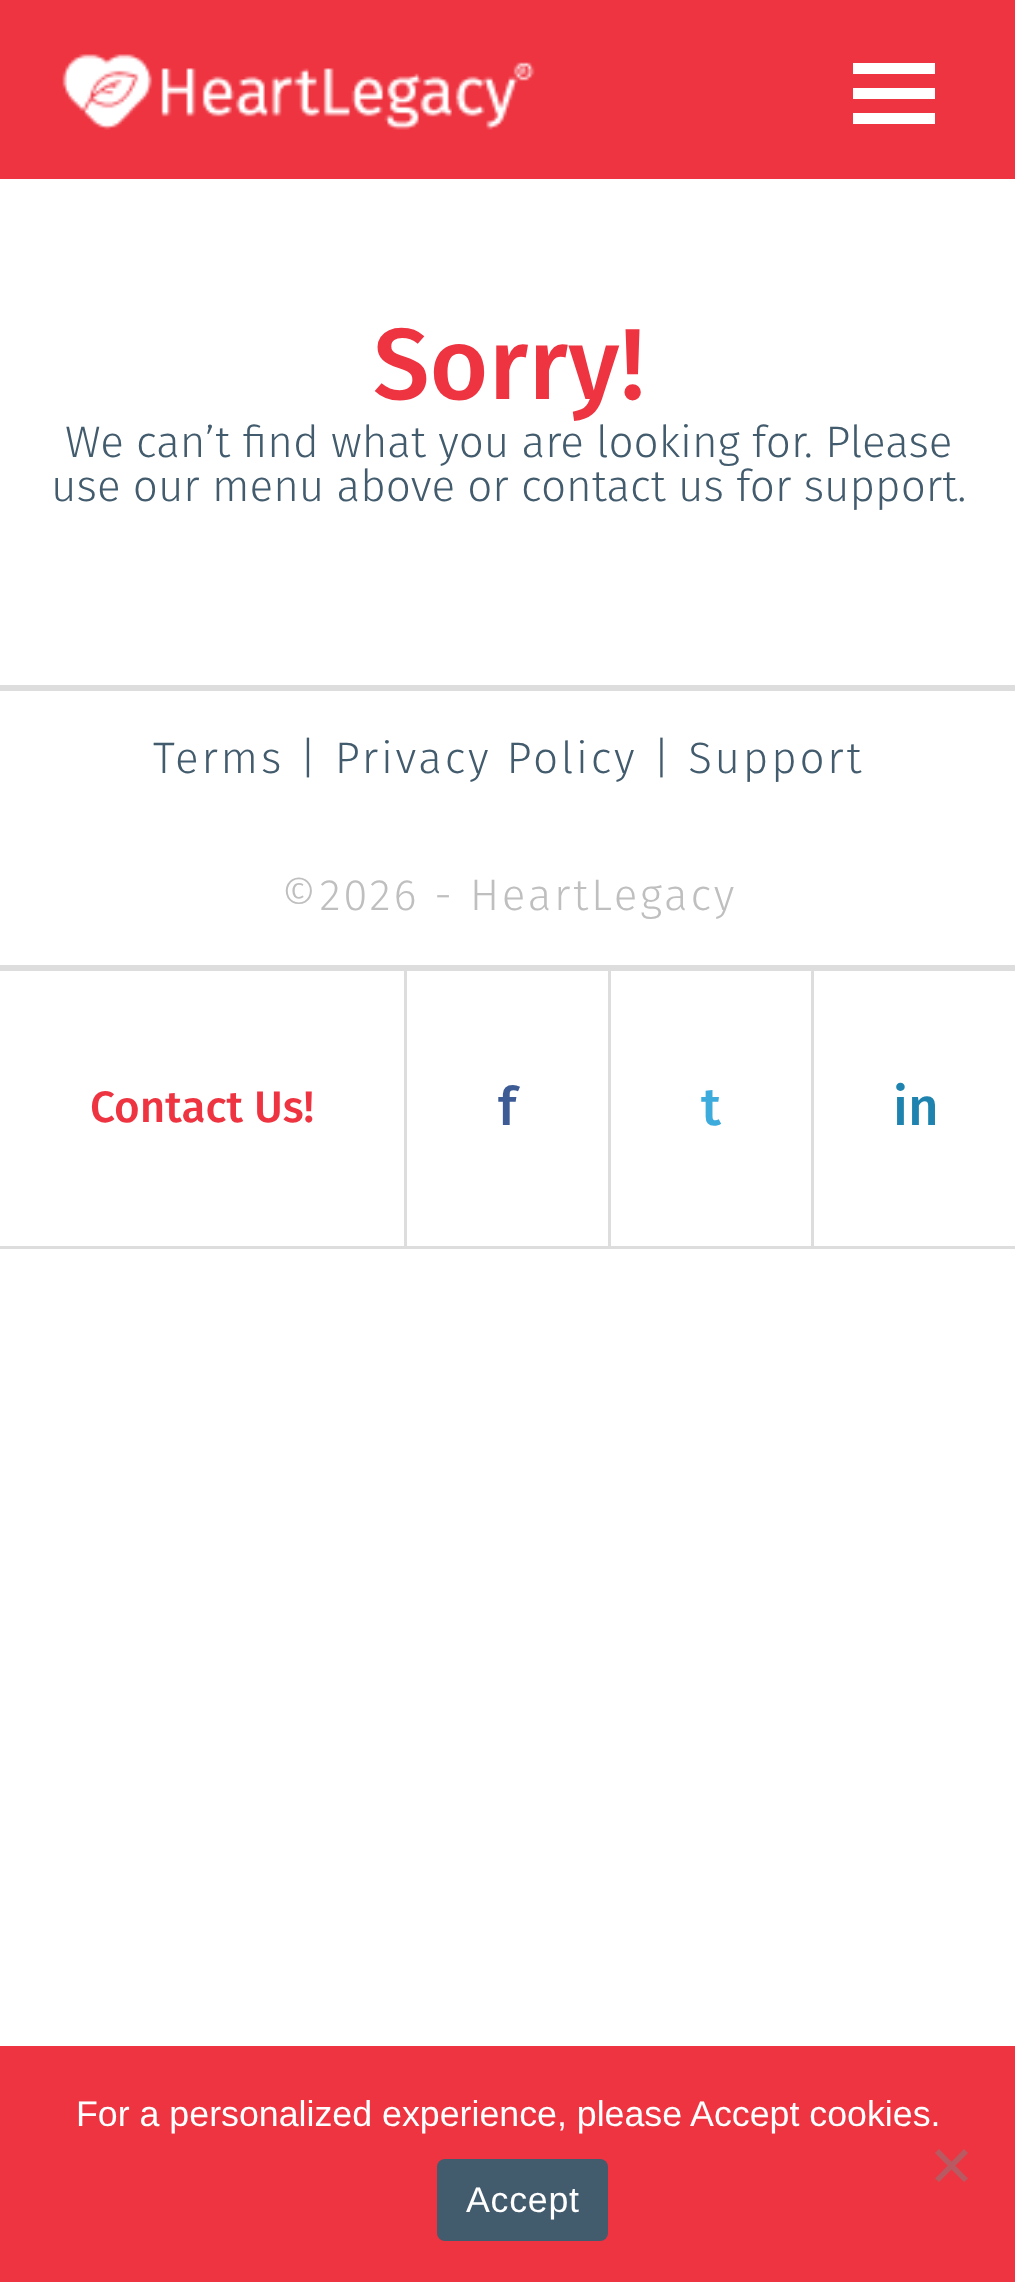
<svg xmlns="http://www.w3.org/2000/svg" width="1015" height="2282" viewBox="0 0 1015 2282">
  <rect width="100%" height="100%" fill="#ffffff"/>
  <rect x="0" y="0" width="1015" height="179" fill="#ee3441"/>
  <image x="62" y="54" width="473" height="76" href="img1.png"/>
  <rect x="853" y="63" width="82" height="11" fill="#ffffff"/>
  <rect x="853" y="88" width="82" height="11" fill="#ffffff"/>
  <rect x="853" y="113" width="82" height="11" fill="#ffffff"/>
  <text x="373" y="399" font-family="Fira Sans" font-size="101" font-weight="500" fill="#ee3441">Sorry!</text>
  <text x="65" y="457" font-family="Fira Sans" font-size="44" font-weight="300" fill="#425b6d">We can’t find what you are looking for. Please</text>
  <text x="51" y="501" font-family="Fira Sans" font-size="44" font-weight="300" fill="#425b6d">use our menu above or contact us for support.</text>
  <rect x="0" y="685" width="1015" height="6" fill="#dddddd"/>
  <rect x="0" y="965" width="1015" height="6" fill="#dddddd"/>
  <text x="153" y="773" font-family="Fira Sans" font-size="44" font-weight="300" letter-spacing="2.75" fill="#425b6d">Terms | Privacy Policy | Support</text>
  <text x="281" y="910" font-family="Fira Sans" font-size="44" font-weight="300" letter-spacing="2.75" fill="#bfbfbf">©2026 - HeartLegacy</text>
  <rect x="0" y="1246" width="1015" height="3" fill="#dddddd"/>
  <rect x="404" y="971" width="3" height="275" fill="#dddddd"/>
  <text x="90" y="1122" font-family="Fira Sans" font-size="44" font-weight="500" fill="#ee3441">Contact Us!</text>
  <rect x="608" y="971" width="3" height="275" fill="#dddddd"/>
  <text x="498" y="1125" font-family="Fira Sans" font-size="53" font-weight="500" fill="#3d5b94">f</text>
  <rect x="811" y="971" width="3" height="275" fill="#dddddd"/>
  <text x="701" y="1125" font-family="Fira Sans" font-size="53" font-weight="500" fill="#3dacdd">t</text>
  <text x="893" y="1125" font-family="Fira Sans" font-size="53" font-weight="500" fill="#1e83ae">in</text>
  <rect x="0" y="2046" width="1015" height="236" fill="#ee3441"/>
  <text x="76" y="2126" font-family="Liberation Sans" font-size="35.75" fill="#ffffff">For a personalized experience, please Accept cookies.</text>
  <path d="M964 2149L968 2153L939 2182L935 2178.5Z" fill="#b75a61"/>
  <path d="M935 2153L939 2149L968 2178.5L964 2182Z" fill="#b75a61"/>
  <rect x="437" y="2159" width="171" height="82" rx="8" fill="#425b6d"/>
  <text x="466" y="2212" font-family="Liberation Sans" font-size="35.75" letter-spacing="0.75" fill="#ffffff">Accept</text>
</svg>
